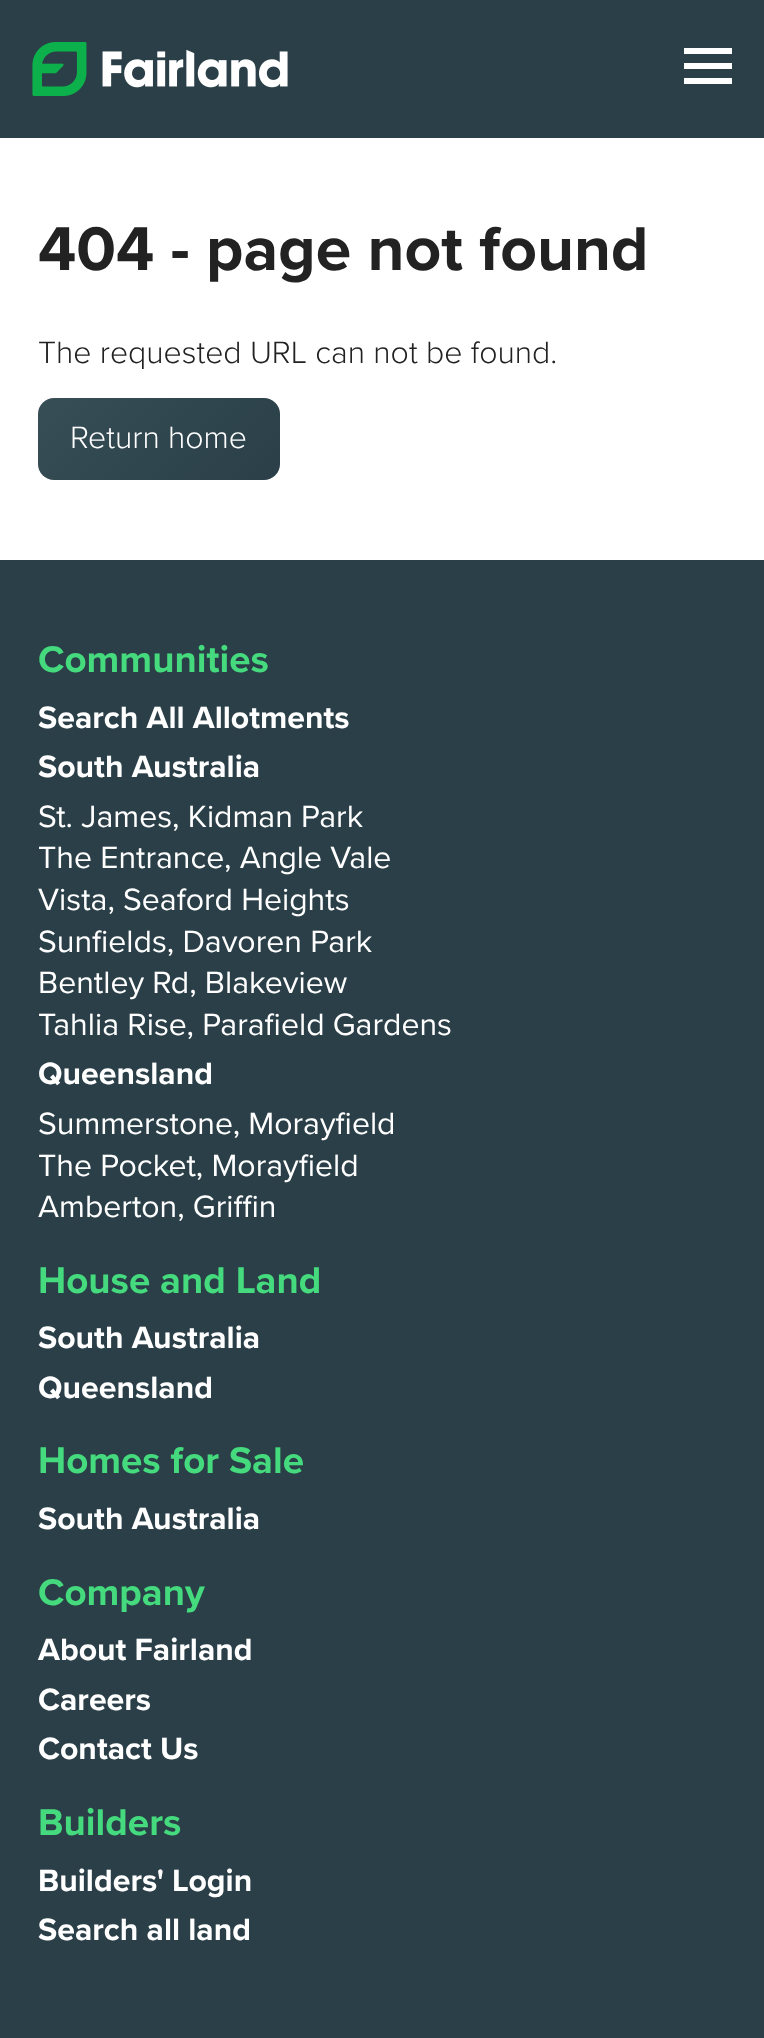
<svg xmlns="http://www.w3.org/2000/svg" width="764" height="2038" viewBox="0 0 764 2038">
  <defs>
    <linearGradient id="g1" gradientUnits="userSpaceOnUse" x1="78" y1="358" x2="240" y2="520"><stop offset="0" stop-color="#374e57"/><stop offset="1" stop-color="#2a3f47"/></linearGradient>
  </defs>
  <rect width="100%" height="100%" fill="#ffffff"/>
  <rect x="0" y="0" width="764" height="138" fill="#2a3f47"/>
  <image x="32" y="42" width="256" height="54" href="img1.png"/>
  <rect x="684" y="48" width="48" height="6" fill="#ffffff"/>
  <rect x="684" y="63" width="48" height="6" fill="#ffffff"/>
  <rect x="684" y="78" width="48" height="6" fill="#ffffff"/>
  <text x="38" y="270" font-family="Proxima Nova" font-size="64" font-weight="bold" fill="#222222">404 - page not found</text>
  <text x="38" y="363" font-family="Proxima Nova" font-size="32" font-weight="300" fill="#222222">The requested URL can not be found.</text>
  <rect x="38" y="398" width="242" height="82" rx="16" fill="url(#g1)"/>
  <text x="70" y="448" font-family="Proxima Nova" font-size="32" font-weight="300" fill="#ffffff">Return home</text>
  <rect x="0" y="560" width="764" height="1478" fill="#2a3f47"/>
  <text x="38" y="672" font-family="Proxima Nova" font-size="38.5" font-weight="bold" fill="#44da7d">Communities</text>
  <text x="38" y="728" font-family="Proxima Nova" font-size="32" font-weight="bold" fill="#ffffff">Search All Allotments</text>
  <text x="38" y="777" font-family="Proxima Nova" font-size="32" font-weight="bold" fill="#ffffff">South Australia</text>
  <text x="38" y="827" font-family="Proxima Nova" font-size="32" fill="#ffffff">St. James, Kidman Park</text>
  <text x="38" y="868" font-family="Proxima Nova" font-size="32" fill="#ffffff">The Entrance, Angle Vale</text>
  <text x="38" y="910" font-family="Proxima Nova" font-size="32" fill="#ffffff">Vista, Seaford Heights</text>
  <text x="38" y="952" font-family="Proxima Nova" font-size="32" fill="#ffffff">Sunfields, Davoren Park</text>
  <text x="38" y="993" font-family="Proxima Nova" font-size="32" fill="#ffffff">Bentley Rd, Blakeview</text>
  <text x="38" y="1035" font-family="Proxima Nova" font-size="32" fill="#ffffff">Tahlia Rise, Parafield Gardens</text>
  <text x="38" y="1084" font-family="Proxima Nova" font-size="32" font-weight="bold" fill="#ffffff">Queensland</text>
  <text x="38" y="1134" font-family="Proxima Nova" font-size="32" fill="#ffffff">Summerstone, Morayfield</text>
  <text x="38" y="1176" font-family="Proxima Nova" font-size="32" fill="#ffffff">The Pocket, Morayfield</text>
  <text x="38" y="1217" font-family="Proxima Nova" font-size="32" fill="#ffffff">Amberton, Griffin</text>
  <text x="38" y="1293" font-family="Proxima Nova" font-size="38.5" font-weight="bold" fill="#44da7d">House and Land</text>
  <text x="38" y="1348" font-family="Proxima Nova" font-size="32" font-weight="bold" fill="#ffffff">South Australia</text>
  <text x="38" y="1398" font-family="Proxima Nova" font-size="32" font-weight="bold" fill="#ffffff">Queensland</text>
  <text x="38" y="1473" font-family="Proxima Nova" font-size="38.5" font-weight="bold" fill="#44da7d">Homes for Sale</text>
  <text x="38" y="1529" font-family="Proxima Nova" font-size="32" font-weight="bold" fill="#ffffff">South Australia</text>
  <text x="38" y="1605" font-family="Proxima Nova" font-size="38.5" font-weight="bold" fill="#44da7d">Company</text>
  <text x="38" y="1660" font-family="Proxima Nova" font-size="32" font-weight="bold" fill="#ffffff">About Fairland</text>
  <text x="38" y="1710" font-family="Proxima Nova" font-size="32" font-weight="bold" fill="#ffffff">Careers</text>
  <text x="38" y="1759" font-family="Proxima Nova" font-size="32" font-weight="bold" fill="#ffffff">Contact Us</text>
  <text x="38" y="1835" font-family="Proxima Nova" font-size="38.5" font-weight="bold" fill="#44da7d">Builders</text>
  <text x="38" y="1891" font-family="Proxima Nova" font-size="32" font-weight="bold" fill="#ffffff">Builders' Login</text>
  <text x="38" y="1940" font-family="Proxima Nova" font-size="32" font-weight="bold" fill="#ffffff">Search all land</text>
</svg>
